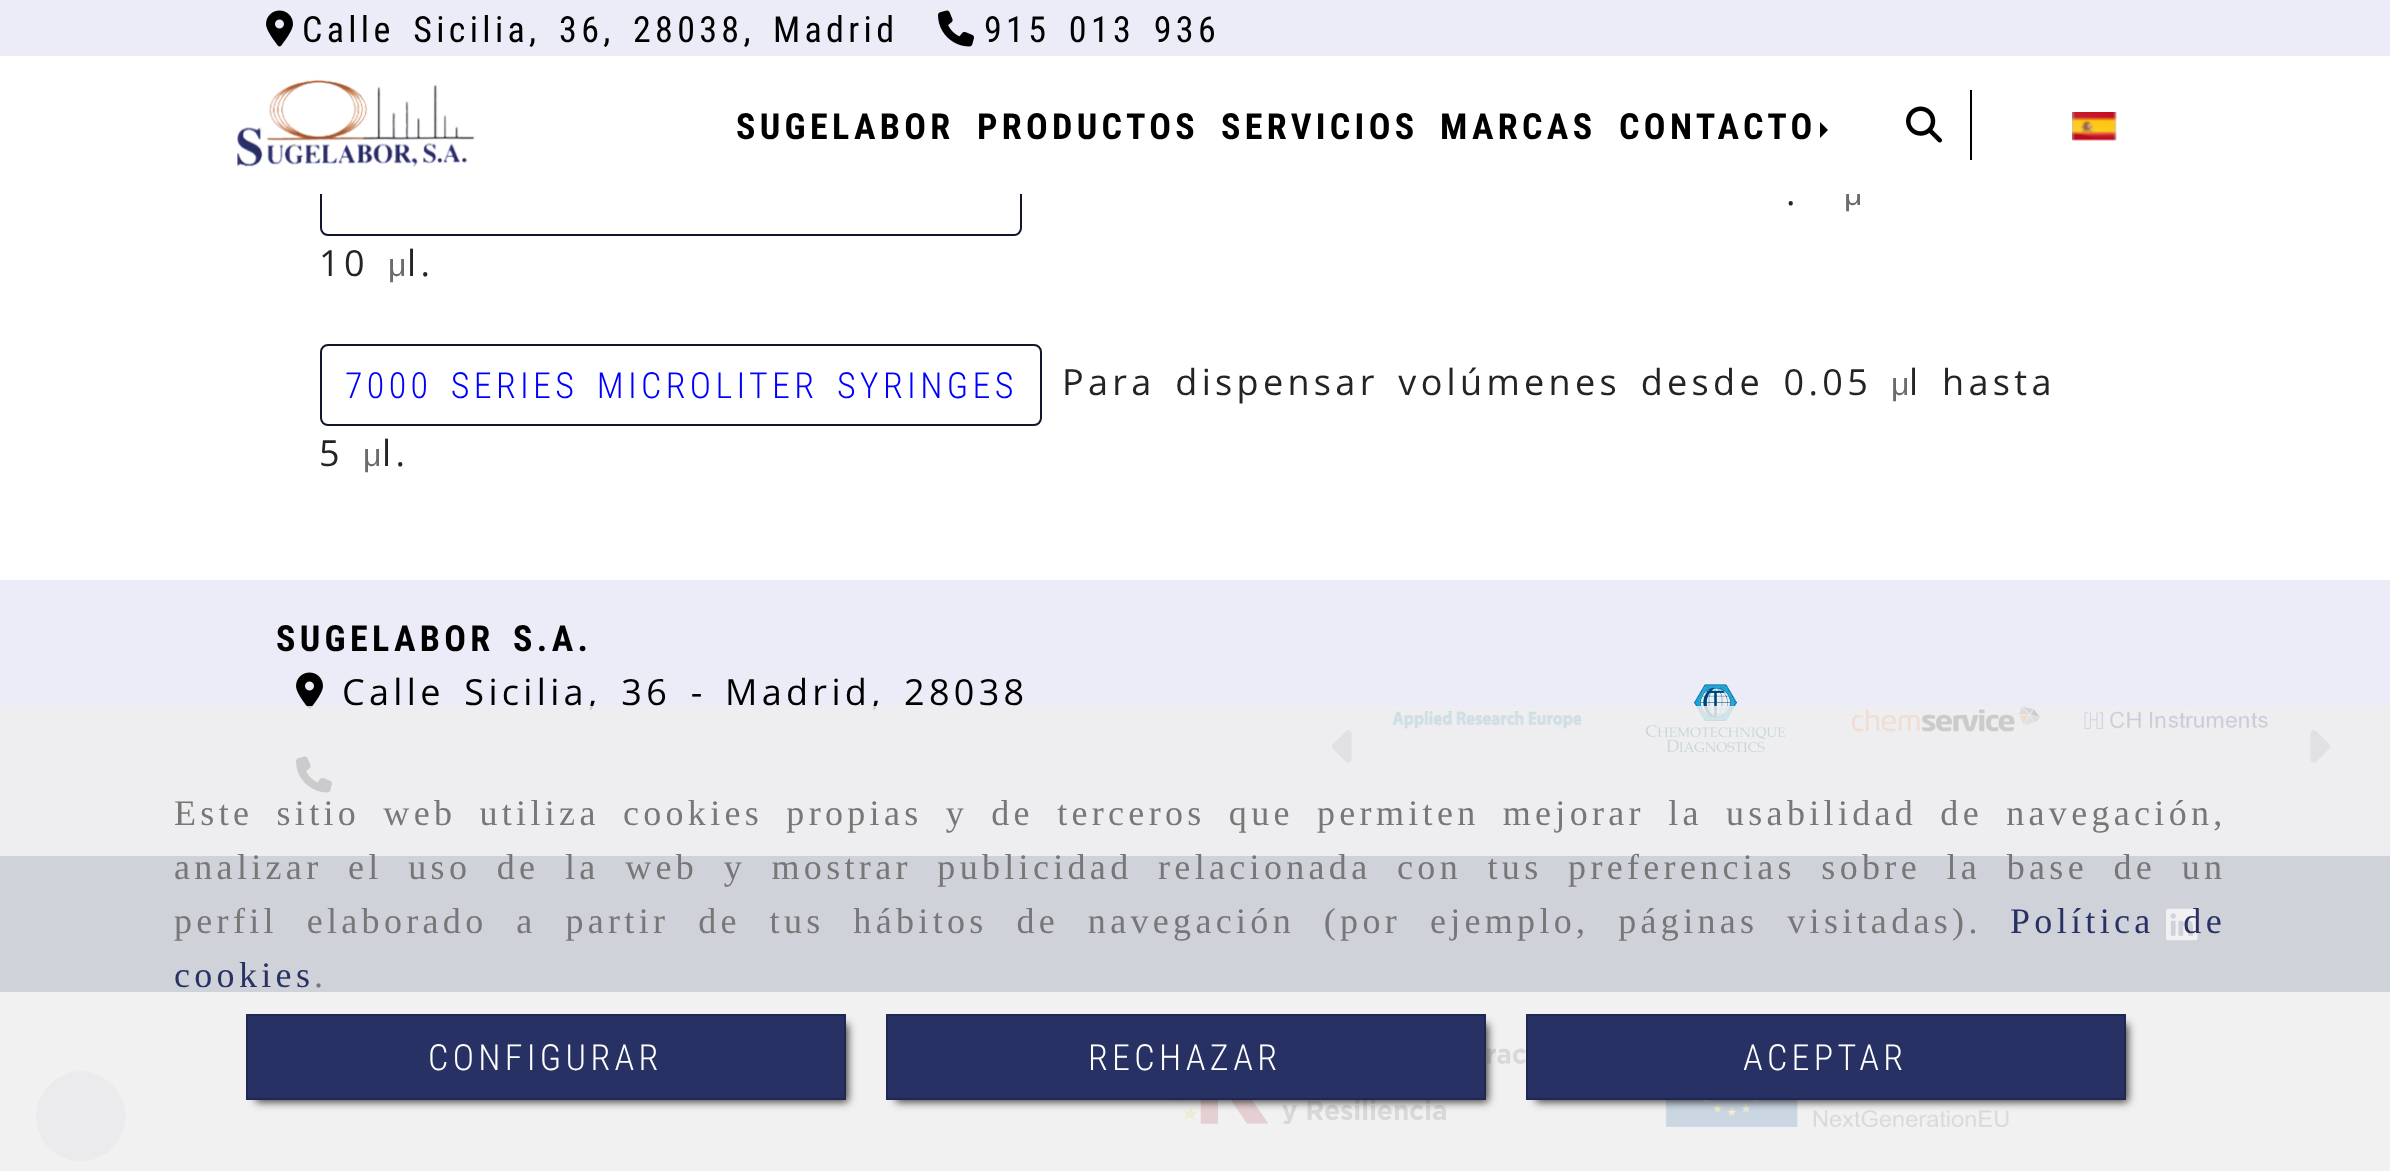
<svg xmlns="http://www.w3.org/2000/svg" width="2390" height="1171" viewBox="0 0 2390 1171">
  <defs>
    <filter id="blur1" x="-50%" y="-200%" width="200%" height="500%"><feGaussianBlur stdDeviation="4"/></filter>
  </defs>
  <rect width="100%" height="100%" fill="#ffffff"/>
  <rect x="0" y="0" width="2390" height="56" fill="#ececf8"/>
  <image x="266" y="10" width="27" height="37" href="img1.png"/>
  <text x="302" y="42" word-spacing="6" font-family="Roboto Condensed" font-size="36" letter-spacing="4.32" fill="#000000">Calle Sicilia, 36,</text>
  <text x="633" y="42" font-family="Roboto Condensed" font-size="36" letter-spacing="4.32" fill="#000000">28038,</text>
  <text x="773" y="42" font-family="Roboto Condensed" font-size="36" letter-spacing="4.32" fill="#000000">Madrid</text>
  <image x="938" y="10" width="36" height="37" href="img2.png"/>
  <text x="984" y="42" word-spacing="6" font-family="Roboto Condensed" font-size="36" letter-spacing="4.32" fill="#000000">915 013 936</text>
  <rect x="321" y="155" width="700" height="80" rx="7" fill="none" stroke="#12162d" stroke-width="2"/>
  <text x="1844" y="205" font-family="Liberation Sans" font-size="32" fill="#6b6b6b">μ</text>
  <rect x="320" y="154" width="1541" height="40" fill="#ffffff"/>
  <image x="237" y="79" width="238" height="88" href="img3.png"/>
  <text x="736" y="139" font-family="Roboto Condensed" font-size="36" font-weight="bold" letter-spacing="4.32" fill="#000000">SUGELABOR</text>
  <text x="977" y="139" font-family="Roboto Condensed" font-size="36" font-weight="bold" letter-spacing="4.32" fill="#000000">PRODUCTOS</text>
  <text x="1221" y="139" font-family="Roboto Condensed" font-size="36" font-weight="bold" letter-spacing="4.32" fill="#000000">SERVICIOS</text>
  <text x="1440" y="139" font-family="Roboto Condensed" font-size="36" font-weight="bold" letter-spacing="4.32" fill="#000000">MARCAS</text>
  <text x="1619" y="139" font-family="Roboto Condensed" font-size="36" font-weight="bold" letter-spacing="4.32" fill="#000000">CONTACTO</text>
  <path d="M1820 138V122L1828 130Z" fill="#000000"/>
  <rect x="1970" y="90" width="2" height="70" fill="#000000"/>
  <image x="1906" y="106" width="36" height="37" href="img4.png"/>
  <image x="2072" y="112" width="45" height="29" href="img5.png"/>
  <text x="1786" y="205" word-spacing="6" font-family="Open Sans" font-size="36" letter-spacing="4.32" fill="#252424">.</text>
  <text x="319" y="276" font-family="Open Sans" font-size="36" letter-spacing="4.32" fill="#252424">10</text>
  <text x="388" y="276" font-family="Liberation Sans" font-size="32" fill="#6b6b6b">μ</text>
  <text x="407" y="276" font-family="Open Sans" font-size="36" letter-spacing="4.32" fill="#252424">l.</text>
  <rect x="321" y="345" width="720" height="80" rx="7" fill="none" stroke="#12162d" stroke-width="2"/>
  <text x="345" y="398" word-spacing="6" font-family="Roboto Condensed" font-size="36" font-weight="300" letter-spacing="4.32" fill="#0000ff">7000 SERIES MICROLITER SYRINGES</text>
  <text x="1062" y="395" word-spacing="6" font-family="Open Sans" font-size="36" letter-spacing="4.32" fill="#252424">Para dispensar volúmenes desde 0.05</text>
  <text x="1891" y="395" font-family="Liberation Sans" font-size="32" fill="#6b6b6b">μ</text>
  <text x="1909" y="395" word-spacing="6" font-family="Open Sans" font-size="36" letter-spacing="4.32" fill="#252424">l hasta</text>
  <text x="319" y="466" font-family="Open Sans" font-size="36" letter-spacing="4.32" fill="#252424">5</text>
  <text x="363" y="466" font-family="Liberation Sans" font-size="32" fill="#6b6b6b">μ</text>
  <text x="382" y="466" font-family="Open Sans" font-size="36" letter-spacing="4.32" fill="#252424">l.</text>
  <rect x="0" y="580" width="2390" height="276" fill="#ececf8"/>
  <text x="276" y="651" word-spacing="6" font-family="Roboto Condensed" font-size="36" font-weight="bold" letter-spacing="4.32" fill="#000000">SUGELABOR S.A.</text>
  <image x="296" y="672" width="27" height="37" href="img1.png"/>
  <text x="342" y="705" word-spacing="6" font-family="Open Sans" font-size="36" letter-spacing="4.32" fill="#000000">Calle Sicilia, 36 -</text>
  <text x="725" y="705" font-family="Open Sans" font-size="36" letter-spacing="4.32" fill="#000000">Madrid,</text>
  <text x="904" y="705" font-family="Open Sans" font-size="36" letter-spacing="4.32" fill="#000000">28038</text>
  <image x="296" y="756" width="36" height="37" href="img2.png"/>
  <image x="1332" y="730" width="20" height="33" href="img6.png"/>
  <image x="1392" y="711" width="190" height="18" href="img7.png"/>
  <image x="1644" y="681" width="142" height="73" href="img8.png"/>
  <image x="1852" y="706" width="188" height="26" href="img9.png"/>
  <image x="2080" y="711" width="188" height="21" href="img10.png"/>
  <image x="2310" y="730" width="20" height="33" href="img11.png"/>
  <rect x="0" y="856" width="2390" height="136" fill="#273164"/>
  <image x="2166" y="908" width="32" height="33" href="img12.png"/>
  <path d="M81 1161C124 1161 142 1107 108 1081C101 1075 91 1071 81 1071C71 1071 61 1075 54 1081C20 1107 38 1161 81 1161Z" fill="#d4d6e0"/>
  <image x="63" y="1097" width="34" height="37" href="img13.png"/>
  <image x="1170" y="1048" width="356" height="76" href="img14.png"/>
  <image x="1665" y="1100" width="344" height="28" href="img15.png"/>
  <rect x="0" y="706" width="2390" height="465" fill="#eeeeee" fill-opacity="0.85"/>
  <text x="174" y="825" word-spacing="9.9" font-family="Liberation Serif" font-size="36" letter-spacing="4.32" fill="#777777">Este sitio web utiliza cookies propias y de terceros que permiten mejorar la usabilidad de navegación,</text>
  <text x="174" y="879" word-spacing="12.25" font-family="Liberation Serif" font-size="36" letter-spacing="4.32" fill="#777777">analizar el uso de la web y mostrar publicidad relacionada con tus preferencias sobre la base de un</text>
  <text x="174" y="933" word-spacing="15.5" font-family="Liberation Serif" font-size="36" letter-spacing="4.32" fill="#777777">perfil elaborado a partir de tus hábitos de navegación (por ejemplo, páginas visitadas).</text>
  <text x="2010" y="933" word-spacing="15.5" font-family="Liberation Serif" font-size="36" letter-spacing="4.32" fill="#273164">Política de</text>
  <text x="174" y="987" font-family="Liberation Serif" font-size="36" letter-spacing="4.32" fill="#273164">cookies</text>
  <text x="314" y="987" font-family="Liberation Serif" font-size="36" letter-spacing="4.32" fill="#777777">.</text>
  <rect x="256" y="1024" width="592" height="78" fill="#000000" fill-opacity="0.75" filter="url(#blur1)"/>
  <rect x="247" y="1015" width="598" height="84" fill="#273164" stroke="#202852" stroke-width="2"/>
  <text x="428" y="1070" font-family="Roboto Condensed" font-size="36" font-weight="300" letter-spacing="4.32" fill="#ffffff">CONFIGURAR</text>
  <rect x="896" y="1024" width="592" height="78" fill="#000000" fill-opacity="0.75" filter="url(#blur1)"/>
  <rect x="887" y="1015" width="598" height="84" fill="#273164" stroke="#202852" stroke-width="2"/>
  <text x="1088" y="1070" font-family="Roboto Condensed" font-size="36" font-weight="300" letter-spacing="4.32" fill="#ffffff">RECHAZAR</text>
  <rect x="1536" y="1024" width="592" height="78" fill="#000000" fill-opacity="0.75" filter="url(#blur1)"/>
  <rect x="1527" y="1015" width="598" height="84" fill="#273164" stroke="#202852" stroke-width="2"/>
  <text x="1743" y="1070" font-family="Roboto Condensed" font-size="36" font-weight="300" letter-spacing="4.32" fill="#ffffff">ACEPTAR</text>
</svg>
